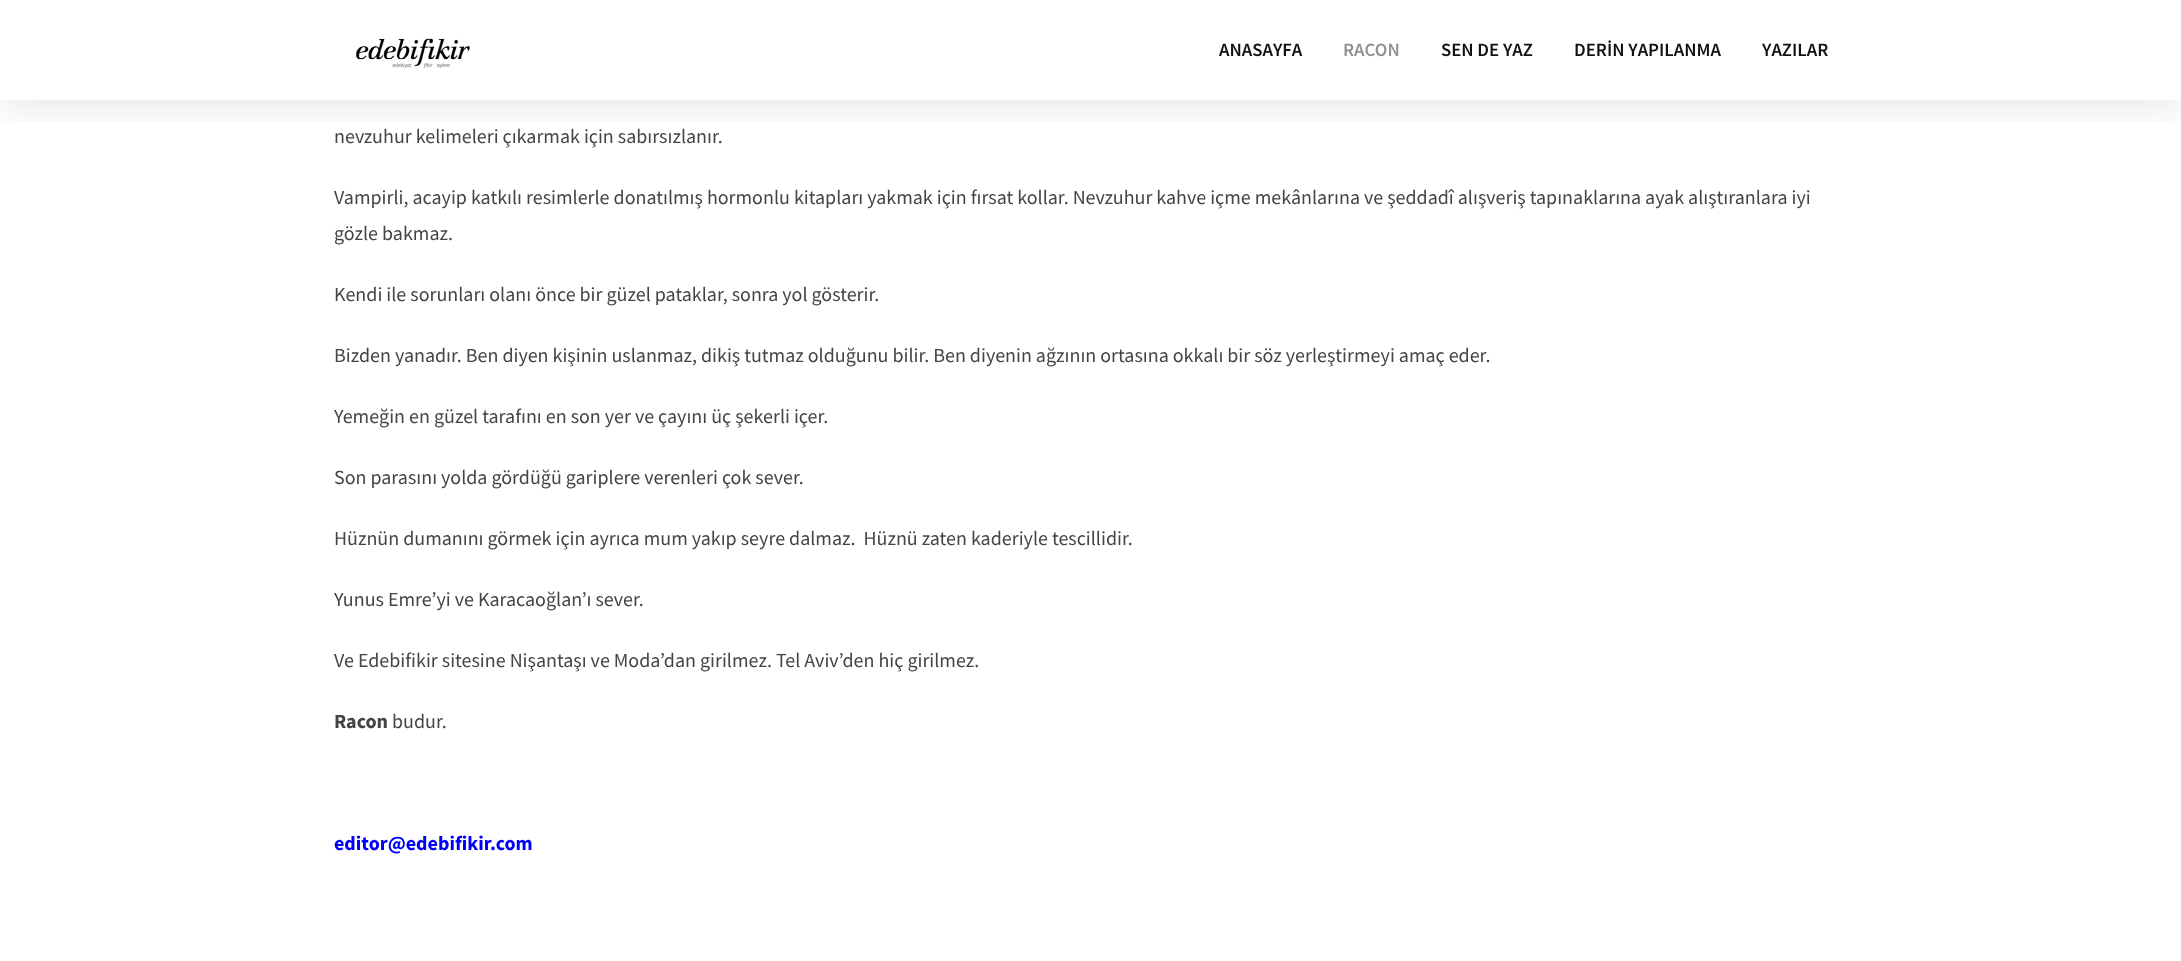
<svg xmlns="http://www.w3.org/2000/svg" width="2181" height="961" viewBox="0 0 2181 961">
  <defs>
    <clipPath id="clip1"><rect x="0" y="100" width="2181" height="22"/></clipPath>
    <filter id="blur1" x="-50%" y="-200%" width="200%" height="500%"><feGaussianBlur stdDeviation="19"/></filter>
  </defs>
  <rect width="100%" height="100%" fill="#ffffff"/>
  <g clip-path="url(#clip1)">
    <rect x="0" y="6" width="2181" height="100" fill="#000000" fill-opacity="0.1" filter="url(#blur1)"/>
  </g>
  <image x="356" y="38" width="114" height="31" href="img1.png"/>
  <text x="1219" y="56" font-family="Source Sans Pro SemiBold" font-size="18.75" font-weight="600" fill="#111111">ANASAYFA</text>
  <text x="1343" y="56" font-family="Source Sans Pro SemiBold" font-size="18.75" font-weight="600" fill="#929292">RACON</text>
  <text x="1441" y="56" font-family="Source Sans Pro SemiBold" font-size="18.75" font-weight="600" fill="#111111">SEN DE YAZ</text>
  <text x="1574" y="56" font-family="Source Sans Pro SemiBold" font-size="18.75" font-weight="600" fill="#111111">DERİN YAPILANMA</text>
  <text x="1762" y="56" font-family="Source Sans Pro SemiBold" font-size="18.75" font-weight="600" fill="#111111">YAZILAR</text>
  <text x="334" y="143" font-family="Source Sans Pro" font-size="20" fill="#444444">nevzuhur kelimeleri çıkarmak için sabırsızlanır.</text>
  <text x="334" y="204" font-family="Source Sans Pro" font-size="20" fill="#444444">Vampirli, acayip katkılı resimlerle donatılmış hormonlu kitapları yakmak için fırsat kollar. Nevzuhur kahve içme mekânlarına ve şeddadî alışveriş tapınaklarına ayak alıştıranlara iyi</text>
  <text x="334" y="240" font-family="Source Sans Pro" font-size="20" fill="#444444">gözle bakmaz.</text>
  <text x="334" y="301" font-family="Source Sans Pro" font-size="20" fill="#444444">Kendi ile sorunları olanı önce bir güzel pataklar, sonra yol gösterir.</text>
  <text x="334" y="362" font-family="Source Sans Pro" font-size="20" fill="#444444">Bizden yanadır. Ben diyen kişinin uslanmaz, dikiş tutmaz olduğunu bilir. Ben diyenin ağzının ortasına okkalı bir söz yerleştirmeyi amaç eder.</text>
  <text x="334" y="423" font-family="Source Sans Pro" font-size="20" fill="#444444">Yemeğin en güzel tarafını en son yer ve çayını üç şekerli içer.</text>
  <text x="334" y="484" font-family="Source Sans Pro" font-size="20" fill="#444444">Son parasını yolda gördüğü gariplere verenleri çok sever.</text>
  <text x="334" y="545" font-family="Source Sans Pro" font-size="20" fill="#444444" xml:space="preserve">Hüznün dumanını görmek için ayrıca mum yakıp seyre dalmaz.  Hüznü zaten kaderiyle tescillidir.</text>
  <text x="334" y="606" font-family="Source Sans Pro" font-size="20" fill="#444444">Yunus Emre’yi ve Karacaoğlan’ı sever.</text>
  <text x="334" y="667" font-family="Source Sans Pro" font-size="20" fill="#444444">Ve Edebifikir sitesine Nişantaşı ve Moda’dan girilmez. Tel Aviv’den hiç girilmez.</text>
  <text x="334" y="728" font-family="Source Sans Pro" font-size="20" font-weight="bold" fill="#444444">Racon</text>
  <text x="392" y="728" font-family="Source Sans Pro" font-size="20" fill="#444444">budur.</text>
  <text x="334" y="850" font-family="Source Sans Pro" font-size="20" font-weight="bold" fill="#0000ff">editor@edebifikir.com</text>
</svg>
